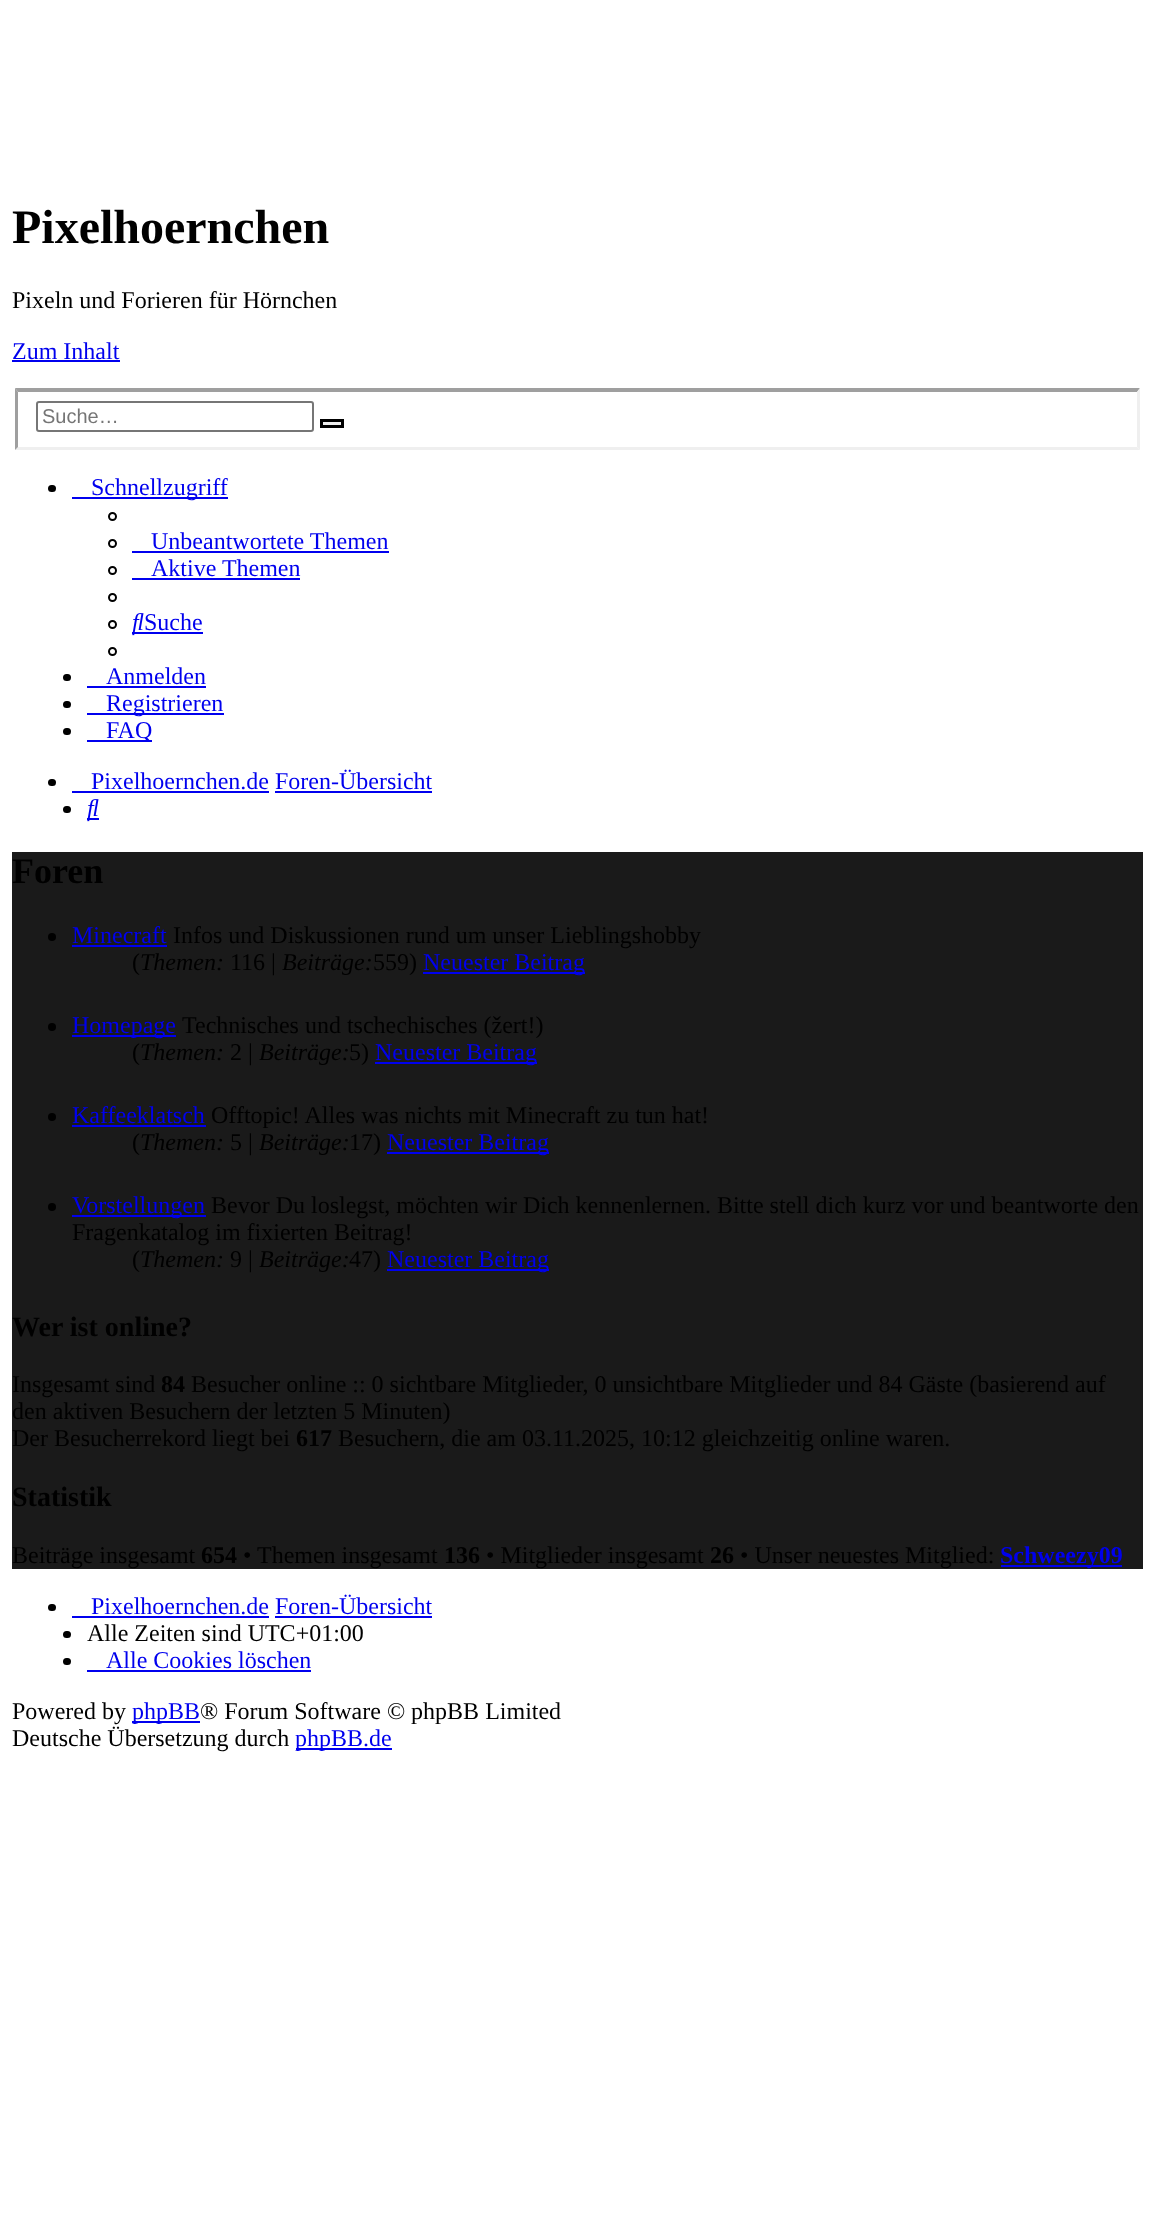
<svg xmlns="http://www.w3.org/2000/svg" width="1155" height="2213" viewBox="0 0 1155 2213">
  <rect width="100%" height="100%" fill="#ffffff"/>
  <text x="12" y="243" font-family="Liberation Serif" font-size="48" font-weight="bold" fill="#000000">Pixelhoernchen</text>
  <text x="12" y="308" font-family="Liberation Serif" font-size="24" fill="#000000">Pixeln und Forieren für Hörnchen</text>
  <text x="12" y="359" font-family="Liberation Serif" font-size="24" fill="#0000ee">Zum Inhalt</text>
  <rect x="12" y="360" width="108" height="2" fill="#0000ee"/>
  <path d="M15 388H1140L1137 392H18Z" fill="#9f9f9f"/>
  <path d="M1140 388V450L1137 447V392Z" fill="#efefef"/>
  <path d="M1140 450H15L18 447H1137Z" fill="#efefef"/>
  <path d="M15 450V388L18 392V447Z" fill="#9f9f9f"/>
  <rect x="37" y="402" width="276" height="29" rx="2" fill="none" stroke="#767676" stroke-width="2"/>
  <text x="42" y="423" font-family="Liberation Sans" font-size="20" fill="#757575">Suche…</text>
  <rect x="321.5" y="420.5" width="21" height="6" fill="#efefef" stroke="#000000" stroke-width="3"/>
  <rect x="48" y="485" width="8" height="7" rx="3.5" fill="#000000"/>
  <rect x="72" y="497" width="156" height="2" fill="#0000ee"/>
  <text x="91" y="495" font-family="Liberation Serif" font-size="24" fill="#0000ee">Schnellzugriff</text>
  <circle cx="112.5" cy="516.5" r="3.5" fill="none" stroke="#000000" stroke-width="2"/>
  <circle cx="112.5" cy="543.5" r="3.5" fill="none" stroke="#000000" stroke-width="2"/>
  <text x="151" y="549" font-family="Liberation Serif" font-size="24" fill="#0000ee">Unbeantwortete Themen</text>
  <rect x="132" y="551" width="257" height="2" fill="#0000ee"/>
  <circle cx="112.5" cy="570.5" r="3.5" fill="none" stroke="#000000" stroke-width="2"/>
  <text x="151" y="576" font-family="Liberation Serif" font-size="24" fill="#0000ee">Aktive Themen</text>
  <rect x="132" y="578" width="168" height="2" fill="#0000ee"/>
  <circle cx="112.5" cy="597.5" r="3.5" fill="none" stroke="#000000" stroke-width="2"/>
  <circle cx="112.5" cy="624.5" r="3.5" fill="none" stroke="#000000" stroke-width="2"/>
  <rect x="132" y="632" width="71" height="2" fill="#0000ee"/>
  <image x="132" y="613" width="12" height="23" href="img1.png"/>
  <text x="144" y="630" font-family="Liberation Serif" font-size="24" fill="#0000ee">Suche</text>
  <circle cx="112.5" cy="651.5" r="3.5" fill="none" stroke="#000000" stroke-width="2"/>
  <rect x="63" y="674" width="8" height="7" rx="3.5" fill="#000000"/>
  <text x="106" y="684" font-family="Liberation Serif" font-size="24" fill="#0000ee">Anmelden</text>
  <rect x="87" y="686" width="119" height="2" fill="#0000ee"/>
  <rect x="63" y="701" width="8" height="7" rx="3.5" fill="#000000"/>
  <rect x="87" y="713" width="137" height="2" fill="#0000ee"/>
  <text x="106" y="711" font-family="Liberation Serif" font-size="24" fill="#0000ee">Registrieren</text>
  <rect x="63" y="728" width="8" height="7" rx="3.5" fill="#000000"/>
  <rect x="87" y="740" width="65" height="2" fill="#0000ee"/>
  <text x="106" y="738" font-family="Liberation Serif" font-size="24" fill="#0000ee">FAQ</text>
  <rect x="48" y="779" width="8" height="7" rx="3.5" fill="#000000"/>
  <text x="91" y="789" font-family="Liberation Serif" font-size="24" fill="#0000ee">Pixelhoernchen.de Foren-Übersicht</text>
  <rect x="72" y="791" width="197" height="2" fill="#0000ee"/>
  <rect x="275" y="791" width="157" height="2" fill="#0000ee"/>
  <rect x="63" y="806" width="8" height="7" rx="3.5" fill="#000000"/>
  <rect x="87" y="818" width="12" height="2" fill="#0000ee"/>
  <image x="87" y="799" width="12" height="23" href="img1.png"/>
  <rect x="12" y="852" width="1131" height="717" fill="#1a1a1a"/>
  <text x="12" y="883" font-family="Liberation Serif" font-size="36" font-weight="bold" fill="#000000">Foren</text>
  <circle cx="52" cy="937" r="4" fill="#000000"/>
  <text x="72" y="943" font-family="Liberation Serif" font-size="24" fill="#0000ee">Minecraft</text>
  <rect x="72" y="945" width="95" height="2" fill="#0000ee"/>
  <text x="173" y="943" font-family="Liberation Serif" font-size="24" fill="#000000">Infos und Diskussionen rund um unser Lieblingshobby</text>
  <text x="132" y="970" font-family="Liberation Serif" font-size="24" fill="#000000">(</text>
  <text x="140" y="970" font-family="Liberation Serif" font-size="24" font-style="italic" fill="#000000">Themen:</text>
  <text x="230" y="970" font-family="Liberation Serif" font-size="24" fill="#000000">116 |</text>
  <text x="282" y="970" font-family="Liberation Serif" font-size="24" font-style="italic" fill="#000000">Beiträge:</text>
  <text x="373" y="970" font-family="Liberation Serif" font-size="24" fill="#000000">559)</text>
  <rect x="423" y="972" width="162" height="2" fill="#0000ee"/>
  <text x="423" y="970" font-family="Liberation Serif" font-size="24" fill="#0000ee">Neuester Beitrag</text>
  <circle cx="52" cy="1027" r="4" fill="#000000"/>
  <rect x="72" y="1035" width="104" height="2" fill="#0000ee"/>
  <text x="72" y="1033" font-family="Liberation Serif" font-size="24" fill="#0000ee">Homepage</text>
  <text x="182" y="1033" font-family="Liberation Serif" font-size="24" fill="#000000">Technisches und tschechisches (žert!)</text>
  <text x="132" y="1060" font-family="Liberation Serif" font-size="24" fill="#000000">(</text>
  <text x="140" y="1060" font-family="Liberation Serif" font-size="24" font-style="italic" fill="#000000">Themen:</text>
  <text x="230" y="1060" font-family="Liberation Serif" font-size="24" fill="#000000">2 |</text>
  <text x="259" y="1060" font-family="Liberation Serif" font-size="24" font-style="italic" fill="#000000">Beiträge:</text>
  <text x="349" y="1060" font-family="Liberation Serif" font-size="24" fill="#000000">5)</text>
  <rect x="375" y="1062" width="162" height="2" fill="#0000ee"/>
  <text x="375" y="1060" font-family="Liberation Serif" font-size="24" fill="#0000ee">Neuester Beitrag</text>
  <circle cx="52" cy="1117" r="4" fill="#000000"/>
  <text x="72" y="1123" font-family="Liberation Serif" font-size="24" fill="#0000ee">Kaffeeklatsch</text>
  <rect x="72" y="1125" width="134" height="2" fill="#0000ee"/>
  <text x="211" y="1123" font-family="Liberation Serif" font-size="24" fill="#000000">Offtopic! Alles was nichts mit Minecraft zu tun hat!</text>
  <text x="132" y="1150" font-family="Liberation Serif" font-size="24" fill="#000000">(</text>
  <text x="140" y="1150" font-family="Liberation Serif" font-size="24" font-style="italic" fill="#000000">Themen:</text>
  <text x="230" y="1150" font-family="Liberation Serif" font-size="24" fill="#000000">5 |</text>
  <text x="259" y="1150" font-family="Liberation Serif" font-size="24" font-style="italic" fill="#000000">Beiträge:</text>
  <text x="349" y="1150" font-family="Liberation Serif" font-size="24" fill="#000000">17)</text>
  <rect x="387" y="1152" width="162" height="2" fill="#0000ee"/>
  <text x="387" y="1150" font-family="Liberation Serif" font-size="24" fill="#0000ee">Neuester Beitrag</text>
  <circle cx="52" cy="1207" r="4" fill="#000000"/>
  <rect x="72" y="1215" width="134" height="2" fill="#0000ee"/>
  <text x="72" y="1213" font-family="Liberation Serif" font-size="24" fill="#0000ee">Vorstellungen</text>
  <text x="211" y="1213" font-family="Liberation Serif" font-size="24" fill="#000000">Bevor Du loslegst, möchten wir Dich kennenlernen. Bitte stell dich kurz vor und beantworte den</text>
  <text x="72" y="1240" font-family="Liberation Serif" font-size="24" fill="#000000">Fragenkatalog im fixierten Beitrag!</text>
  <text x="132" y="1267" font-family="Liberation Serif" font-size="24" fill="#000000">(</text>
  <text x="140" y="1267" font-family="Liberation Serif" font-size="24" font-style="italic" fill="#000000">Themen:</text>
  <text x="230" y="1267" font-family="Liberation Serif" font-size="24" fill="#000000">9 |</text>
  <text x="259" y="1267" font-family="Liberation Serif" font-size="24" font-style="italic" fill="#000000">Beiträge:</text>
  <text x="349" y="1267" font-family="Liberation Serif" font-size="24" fill="#000000">47)</text>
  <rect x="387" y="1269" width="162" height="2" fill="#0000ee"/>
  <text x="387" y="1267" font-family="Liberation Serif" font-size="24" fill="#0000ee">Neuester Beitrag</text>
  <text x="12" y="1336" font-family="Liberation Serif" font-size="28" font-weight="bold" fill="#000000">Wer ist online?</text>
  <text x="12" y="1392" font-family="Liberation Serif" font-size="24" fill="#000000">Insgesamt sind</text>
  <text x="161" y="1392" font-family="Liberation Serif" font-size="24" font-weight="bold" fill="#000000">84</text>
  <text x="191" y="1392" font-family="Liberation Serif" font-size="24" fill="#000000">Besucher online :: 0 sichtbare Mitglieder, 0 unsichtbare Mitglieder und 84 Gäste (basierend auf</text>
  <text x="12" y="1419" font-family="Liberation Serif" font-size="24" fill="#000000">den aktiven Besuchern der letzten 5 Minuten)</text>
  <text x="12" y="1446" font-family="Liberation Serif" font-size="24" fill="#000000">Der Besucherrekord liegt bei</text>
  <text x="296" y="1446" font-family="Liberation Serif" font-size="24" font-weight="bold" fill="#000000">617</text>
  <text x="338" y="1446" font-family="Liberation Serif" font-size="24" fill="#000000">Besuchern, die am 03.11.2025, 10:12 gleichzeitig online waren.</text>
  <text x="12" y="1506" font-family="Liberation Serif" font-size="28" font-weight="bold" fill="#000000">Statistik</text>
  <text x="12" y="1563" font-family="Liberation Serif" font-size="24" fill="#000000">Beiträge insgesamt</text>
  <text x="201" y="1563" font-family="Liberation Serif" font-size="24" font-weight="bold" fill="#000000">654</text>
  <text x="243" y="1563" font-family="Liberation Serif" font-size="24" fill="#000000">• Themen insgesamt</text>
  <text x="444" y="1563" font-family="Liberation Serif" font-size="24" font-weight="bold" fill="#000000">136</text>
  <text x="486" y="1563" font-family="Liberation Serif" font-size="24" fill="#000000">• Mitglieder insgesamt</text>
  <text x="710" y="1563" font-family="Liberation Serif" font-size="24" font-weight="bold" fill="#000000">26</text>
  <text x="740" y="1563" font-family="Liberation Serif" font-size="24" fill="#000000">• Unser neuestes Mitglied:</text>
  <rect x="1001" y="1565" width="121" height="2" fill="#0000ee"/>
  <text x="1000" y="1563" font-family="Liberation Serif" font-size="24" font-weight="bold" fill="#0000ee">Schweezy09</text>
  <rect x="48" y="1604" width="8" height="7" rx="3.5" fill="#000000"/>
  <text x="91" y="1614" font-family="Liberation Serif" font-size="24" fill="#0000ee">Pixelhoernchen.de Foren-Übersicht</text>
  <rect x="72" y="1616" width="197" height="2" fill="#0000ee"/>
  <rect x="275" y="1616" width="157" height="2" fill="#0000ee"/>
  <rect x="63" y="1631" width="8" height="7" rx="3.5" fill="#000000"/>
  <text x="87" y="1641" font-family="Liberation Serif" font-size="24" fill="#000000">Alle Zeiten sind UTC+01:00</text>
  <rect x="63" y="1658" width="8" height="7" rx="3.5" fill="#000000"/>
  <text x="106" y="1668" font-family="Liberation Serif" font-size="24" fill="#0000ee">Alle Cookies löschen</text>
  <rect x="87" y="1670" width="224" height="2" fill="#0000ee"/>
  <text x="12" y="1719" font-family="Liberation Serif" font-size="24" fill="#000000">Powered by</text>
  <rect x="132" y="1721" width="68" height="2" fill="#0000ee"/>
  <text x="132" y="1719" font-family="Liberation Serif" font-size="24" fill="#0000ee">phpBB</text>
  <text x="200" y="1719" font-family="Liberation Serif" font-size="24" fill="#000000">® Forum Software © phpBB Limited</text>
  <text x="12" y="1746" font-family="Liberation Serif" font-size="24" fill="#000000">Deutsche Übersetzung durch</text>
  <rect x="296" y="1748" width="96" height="2" fill="#0000ee"/>
  <text x="295" y="1746" font-family="Liberation Serif" font-size="24" fill="#0000ee">phpBB.de</text>
</svg>
